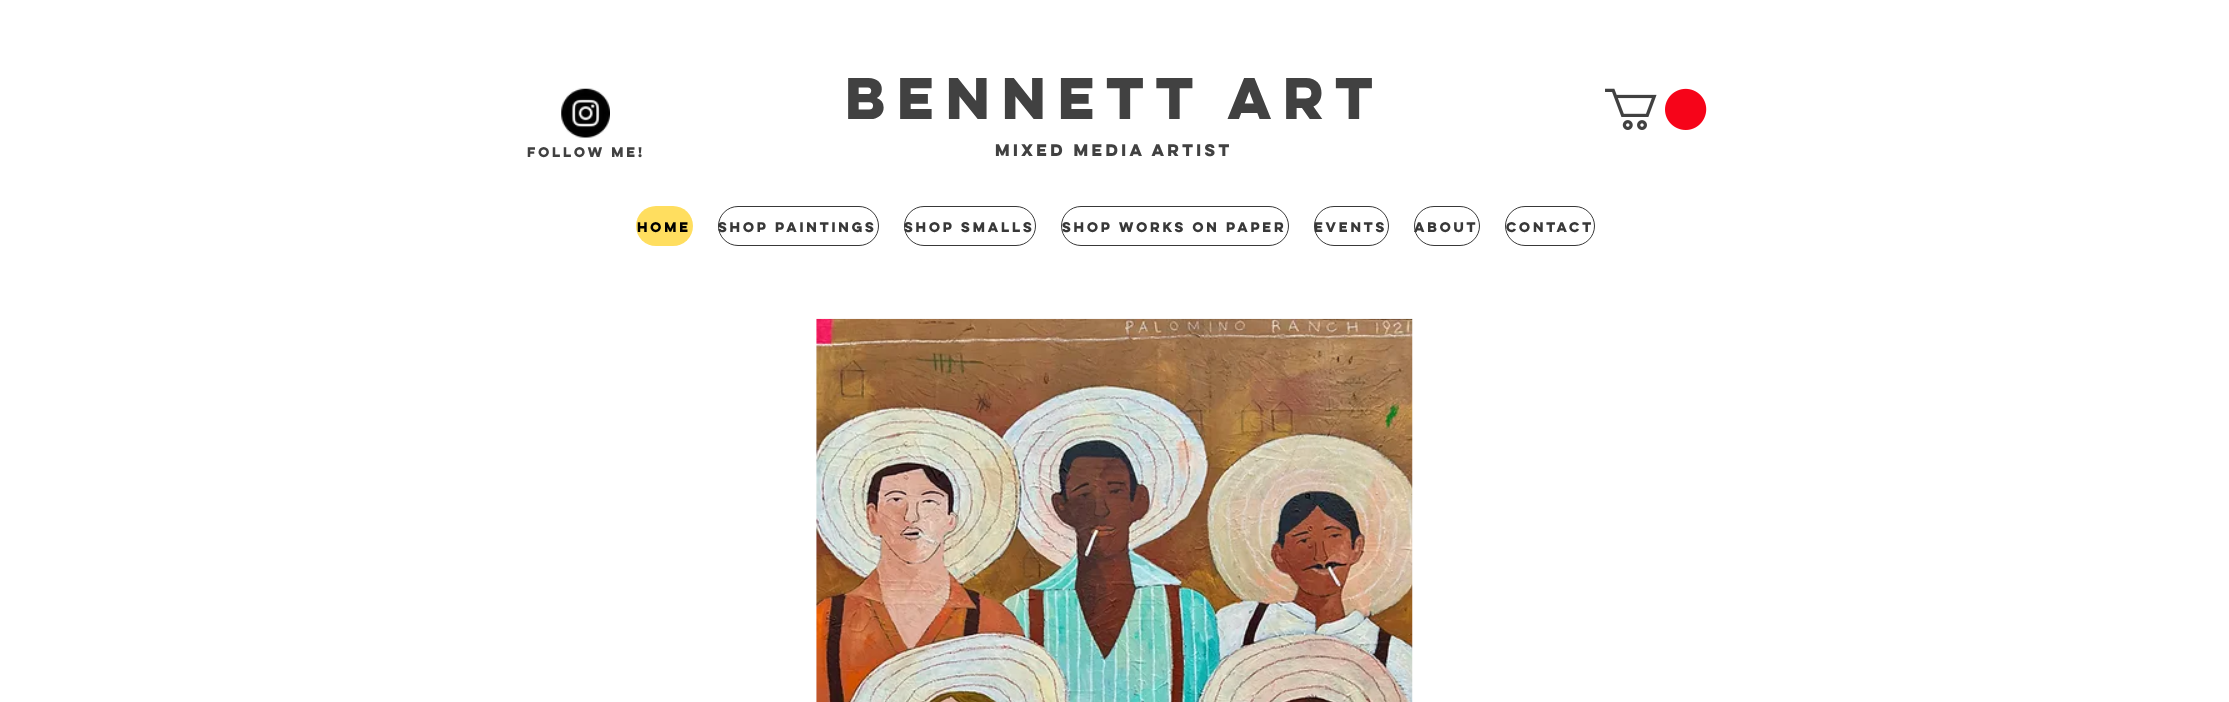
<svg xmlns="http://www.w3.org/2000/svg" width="2229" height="702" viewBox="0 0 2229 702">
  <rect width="100%" height="100%" fill="#ffffff"/>
  <image x="561" y="88" width="49" height="50" href="img1.png"/>
  <text x="845" y="119" font-family="'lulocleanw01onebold'" font-size="52.5" font-weight="bold" fill="#414141">bennett art</text>
  <image x="1605" y="88" width="102" height="42" href="img2.png"/>
  <text x="527" y="157" font-family="'lulocleanw01onebold'" font-size="12.5" font-weight="bold" fill="#414141">follow me!</text>
  <text x="995" y="156" font-family="'lulocleanw01onebold'" font-size="15" font-weight="bold" fill="#414141">mixed media artist</text>
  <rect x="636" y="206" width="57" height="40" rx="20" fill="#ffde5f"/>
  <text x="637" y="232" font-family="'lulocleanw01onebold'" font-size="12.5" font-weight="bold" fill="#000000">Home</text>
  <rect x="718.5" y="206.5" width="160" height="39" rx="19.5" fill="none" stroke="#383838"/>
  <text x="718" y="232" font-family="'lulocleanw01onebold'" font-size="12.5" font-weight="bold" fill="#383838">Shop Paintings</text>
  <rect x="904.5" y="206.5" width="131" height="39" rx="19.5" fill="none" stroke="#383838"/>
  <text x="904" y="232" font-family="'lulocleanw01onebold'" font-size="12.5" font-weight="bold" fill="#383838">Shop Smalls</text>
  <rect x="1061.5" y="206.5" width="227" height="39" rx="19.5" fill="none" stroke="#383838"/>
  <text x="1062" y="232" font-family="'lulocleanw01onebold'" font-size="12.5" font-weight="bold" fill="#383838">Shop Works On Paper</text>
  <rect x="1314.5" y="206.5" width="74" height="39" rx="19.5" fill="none" stroke="#383838"/>
  <text x="1314" y="232" font-family="'lulocleanw01onebold'" font-size="12.5" font-weight="bold" fill="#383838">Events</text>
  <rect x="1414.5" y="206.5" width="65" height="39" rx="19.5" fill="none" stroke="#383838"/>
  <text x="1414" y="232" font-family="'lulocleanw01onebold'" font-size="12.5" font-weight="bold" fill="#383838">About</text>
  <rect x="1505.5" y="206.5" width="89" height="39" rx="19.5" fill="none" stroke="#383838"/>
  <text x="1506" y="232" font-family="'lulocleanw01onebold'" font-size="12.5" font-weight="bold" fill="#383838">Contact</text>
  <image x="816" y="318" width="597" height="384" href="img3.png"/>
</svg>
